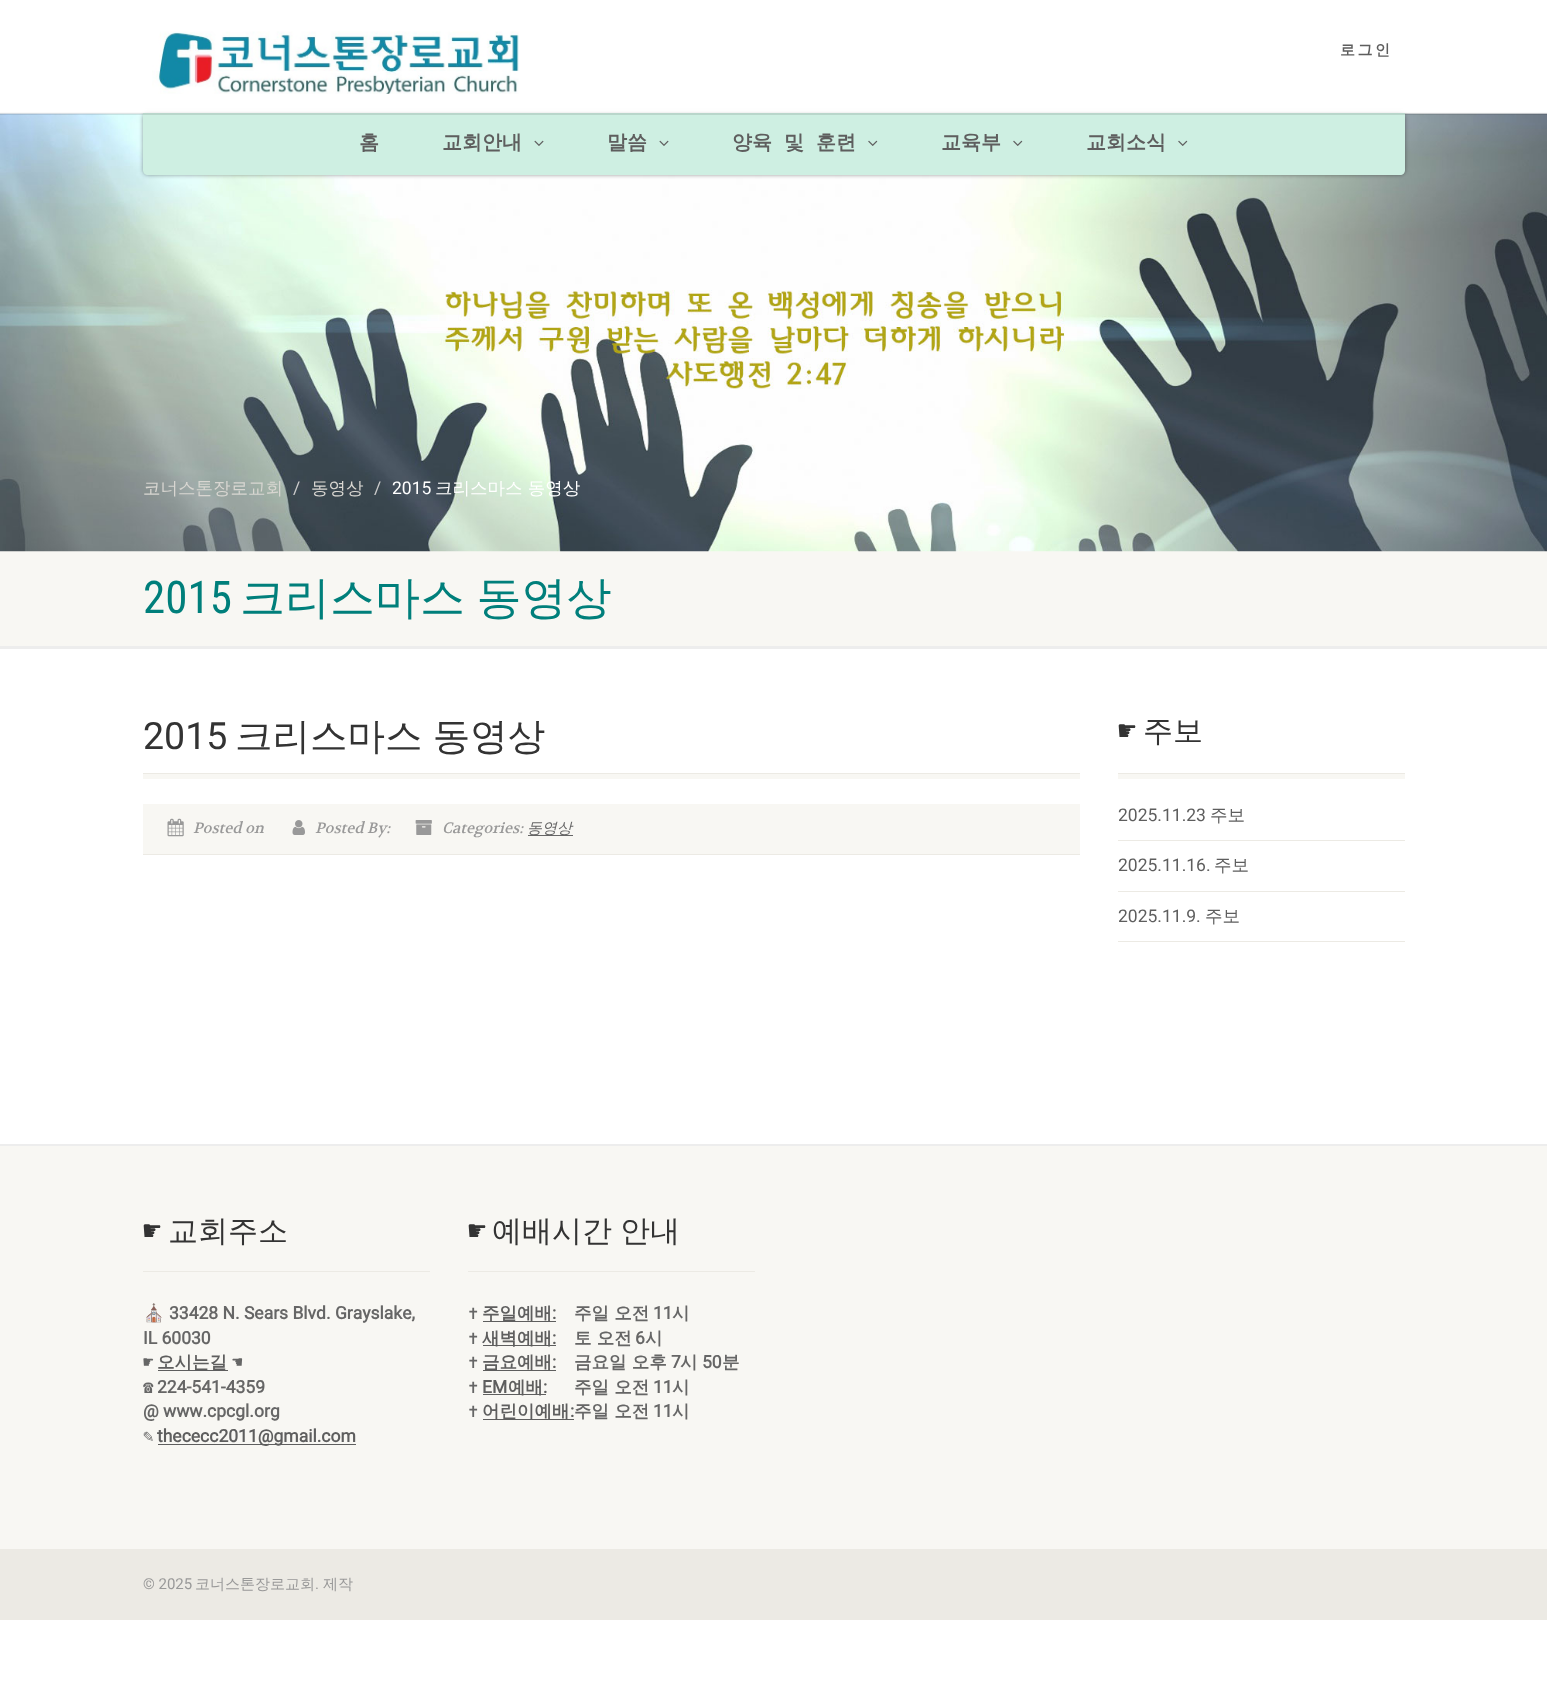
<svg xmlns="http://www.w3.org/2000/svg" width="1547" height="1693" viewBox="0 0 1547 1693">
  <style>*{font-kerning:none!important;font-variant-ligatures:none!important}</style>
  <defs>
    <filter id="blur1" x="-50%" y="-200%" width="200%" height="500%"><feGaussianBlur stdDeviation="2"/></filter>
  </defs>
  <rect width="100%" height="100%" fill="#ffffff"/>
  <rect x="0" y="551" width="1547" height="95" fill="#f8f7f3"/>
  <image x="0" y="113" width="1547" height="439" href="img4.png"/>
  <rect x="143" y="113" width="1262" height="62" rx="5" fill="#000000" fill-opacity="0.4" filter="url(#blur1)"/>
  <path d="M143 113H1405V170C1405 173 1403 175 1400 175H148C145 175 143 173 143 170Z" fill="#ceefe2"/>
  <path d="M0 112V115H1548V3V112Z" fill="#000000" fill-opacity="0.1"/>
  <rect x="0" y="109" width="1547" height="4" fill="#ffffff" fill-opacity="0.8"/>
  <image x="152" y="31" width="367" height="63" href="img1.png"/>
  <text x="1340" y="55" font-family="WenQuanYi Zen Hei" font-size="15" font-weight="bold" letter-spacing="2.5" fill="#5e5e5e">로그인</text>
  <text x="359" y="149" font-family="WenQuanYi Zen Hei" font-size="20" font-weight="bold" fill="#5e5e5e">홈</text>
  <text x="442" y="149" font-family="WenQuanYi Zen Hei" font-size="20" font-weight="bold" fill="#5e5e5e">교회안내</text>
  <image x="534" y="140" width="10" height="6" href="img2.png"/>
  <text x="607" y="149" font-family="WenQuanYi Zen Hei" font-size="20" font-weight="bold" fill="#5e5e5e">말씀</text>
  <image x="659" y="140" width="10" height="6" href="img2.png"/>
  <text x="732" y="149" word-spacing="6" font-family="WenQuanYi Zen Hei" font-size="20" font-weight="bold" fill="#5e5e5e">양육 및 훈련</text>
  <image x="868" y="140" width="10" height="6" href="img3.png"/>
  <text x="941" y="149" font-family="WenQuanYi Zen Hei" font-size="20" font-weight="bold" fill="#5e5e5e">교육부</text>
  <image x="1013" y="140" width="10" height="6" href="img3.png"/>
  <text x="1086" y="149" font-family="WenQuanYi Zen Hei" font-size="20" font-weight="bold" fill="#5e5e5e">교회소식</text>
  <image x="1178" y="140" width="10" height="6" href="img3.png"/>
  <text x="143" y="494" font-family="WenQuanYi Zen Hei" font-size="17.5" font-weight="500" fill="#d8d6d1">코너스톤장로교회</text>
  <text x="293" y="494" font-family="Roboto" font-size="17.5" fill="#cccccc">/</text>
  <text x="311" y="494" font-family="WenQuanYi Zen Hei" font-size="17.5" font-weight="500" fill="#d8d6d1">동영상</text>
  <text x="374" y="494" font-family="Roboto" font-size="17.5" fill="#cccccc">/</text>
  <text x="392" y="494" font-family="Roboto" font-size="17.5" fill="#ffffff">2015</text>
  <text x="435" y="494" font-family="WenQuanYi Zen Hei" font-size="17.5" font-weight="500" fill="#ffffff">크리스마스 동영상</text>
  <path d="M0 646V649H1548V554V646Z" fill="#ededed"/>
  <text x="143" y="613" font-family="Roboto Condensed" font-size="45" fill="#007f7b">2015</text>
  <text x="240" y="613" word-spacing="-2" font-family="WenQuanYi Zen Hei" font-size="45" font-weight="500" fill="#007f7b">크리스마스 동영상</text>
  <rect x="143" y="773" width="937" height="1" fill="#eceae4"/>
  <text x="143" y="749" font-family="Roboto" font-size="37.5" fill="#333333">2015</text>
  <text x="235" y="749" word-spacing="-1" font-family="WenQuanYi Zen Hei" font-size="37.5" font-weight="500" fill="#333333">크리스마스 동영상</text>
  <rect x="143" y="774" width="937" height="5" fill="#f8f7f3"/>
  <rect x="143" y="804" width="937" height="50" fill="#f8f7f3"/>
  <rect x="143" y="854" width="937" height="1" fill="#eceae4"/>
  <image x="167" y="818" width="17" height="19" href="img5.png"/>
  <text x="193" y="833" font-family="Volkhov" font-size="15" font-style="italic" fill="#999999">Posted on</text>
  <image x="292" y="820" width="13" height="15" href="img6.png"/>
  <text x="315" y="833" font-family="Volkhov" font-size="15" font-style="italic" fill="#999999">Posted By:</text>
  <image x="415" y="820" width="17" height="15" href="img7.png"/>
  <text x="442" y="833" font-family="Volkhov" font-size="15" font-style="italic" fill="#999999">Categories:</text>
  <rect x="528" y="835" width="45" height="1" fill="#666666"/>
  <text x="527" y="833" font-family="WenQuanYi Zen Hei" font-size="15" font-weight="500" font-style="italic" fill="#666666">동영상</text>
  <rect x="1118" y="774" width="287" height="5" fill="#f8f7f3"/>
  <rect x="1118" y="773" width="287" height="1" fill="#eceae4"/>
  <text x="1118" y="741" font-family="DejaVu Sans Mono" font-size="30" fill="#333333">☛</text>
  <text x="1143" y="741" font-family="WenQuanYi Zen Hei" font-size="30" font-weight="500" fill="#333333">주보</text>
  <rect x="1118" y="840" width="287" height="1" fill="#eceae4"/>
  <text x="1118" y="821" font-family="Roboto" font-size="17.5" fill="#5e5e5e">2025.11.23</text>
  <text x="1210" y="821" font-family="WenQuanYi Zen Hei" font-size="17.5" font-weight="500" fill="#5e5e5e">주보</text>
  <rect x="1118" y="891" width="287" height="1" fill="#eceae4"/>
  <text x="1118" y="871" font-family="Roboto" font-size="17.5" fill="#5e5e5e">2025.11.16.</text>
  <text x="1214" y="871" font-family="WenQuanYi Zen Hei" font-size="17.5" font-weight="500" fill="#5e5e5e">주보</text>
  <rect x="1118" y="941" width="287" height="1" fill="#eceae4"/>
  <text x="1118" y="922" font-family="Roboto" font-size="17.5" fill="#5e5e5e">2025.11.9.</text>
  <text x="1205" y="922" font-family="WenQuanYi Zen Hei" font-size="17.5" font-weight="500" fill="#5e5e5e">주보</text>
  <path d="M0 1144V1146H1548V1546V1144Z" fill="#ededed"/>
  <rect x="0" y="1146" width="1547" height="403" fill="#f8f7f3"/>
  <text x="143" y="1241" font-family="DejaVu Sans Mono" font-size="30" fill="#333333">☛</text>
  <text x="168" y="1241" font-family="WenQuanYi Zen Hei" font-size="30" font-weight="500" fill="#333333">교회주소</text>
  <rect x="143" y="1271" width="287" height="1" fill="#eceae4"/>
  <text x="143" y="1319" font-family="Noto Color Emoji" font-size="17.5" font-weight="bold" fill="#666666">⛪</text>
  <text x="169" y="1319" font-family="Roboto" font-size="17.5" font-weight="bold" fill="#666666">33428 N. Sears Blvd. Grayslake,</text>
  <text x="143" y="1344" font-family="Roboto" font-size="17.5" font-weight="bold" fill="#666666">IL 60030</text>
  <text x="143" y="1368" font-family="DejaVu Sans Mono" font-size="17.5" font-weight="bold" fill="#666666">☛</text>
  <rect x="158" y="1370" width="70" height="1" fill="#5e5e5e"/>
  <text x="157" y="1368" font-family="WenQuanYi Zen Hei" font-size="17.5" font-weight="bold" fill="#5e5e5e">오시는길</text>
  <text x="232" y="1368" font-family="DejaVu Sans Mono" font-size="17.5" font-weight="bold" fill="#666666">☚</text>
  <text x="143" y="1393" font-family="DejaVu Sans Mono" font-size="17.5" font-weight="bold" fill="#666666">☎</text>
  <text x="157" y="1393" font-family="Roboto" font-size="17.5" font-weight="bold" fill="#666666">224-541-4359</text>
  <text x="143" y="1417" font-family="Roboto" font-size="17.5" font-weight="bold" fill="#666666">@ www.cpcgl.org</text>
  <text x="143" y="1442" font-family="DejaVu Sans Mono" font-size="17.5" font-weight="bold" fill="#666666">✎</text>
  <rect x="158" y="1444" width="198" height="1" fill="#5e5e5e"/>
  <text x="157" y="1442" font-family="Roboto" font-size="17.5" font-weight="bold" fill="#5e5e5e">thececc2011@gmail.com</text>
  <text x="468" y="1241" font-family="DejaVu Sans Mono" font-size="30" fill="#333333">☛</text>
  <text x="492" y="1241" word-spacing="-1" font-family="WenQuanYi Zen Hei" font-size="30" font-weight="500" fill="#333333">예배시간 안내</text>
  <rect x="468" y="1271" width="287" height="1" fill="#eceae4"/>
  <text x="468" y="1319" font-family="DejaVu Sans Mono" font-size="17.5" font-weight="bold" fill="#666666">✝</text>
  <rect x="483" y="1321" width="73" height="1" fill="#5e5e5e"/>
  <text x="482" y="1319" font-family="WenQuanYi Zen Hei" font-size="17.5" font-weight="bold" fill="#5e5e5e">주일예배</text>
  <text x="552" y="1319" font-family="Roboto" font-size="17.5" font-weight="bold" fill="#5e5e5e">:</text>
  <text x="574" y="1319" font-family="WenQuanYi Zen Hei" font-size="17.5" font-weight="bold" fill="#666666">주일 오전</text>
  <text x="653" y="1319" font-family="Roboto" font-size="17.5" font-weight="bold" fill="#666666">11</text>
  <text x="672" y="1319" font-family="WenQuanYi Zen Hei" font-size="17.5" font-weight="bold" fill="#666666">시</text>
  <text x="468" y="1344" font-family="DejaVu Sans Mono" font-size="17.5" font-weight="bold" fill="#666666">✝</text>
  <rect x="483" y="1345" width="73" height="1" fill="#5e5e5e"/>
  <text x="482" y="1344" font-family="WenQuanYi Zen Hei" font-size="17.5" font-weight="bold" fill="#5e5e5e">새벽예배</text>
  <text x="552" y="1344" font-family="Roboto" font-size="17.5" font-weight="bold" fill="#5e5e5e">:</text>
  <text x="574" y="1344" font-family="WenQuanYi Zen Hei" font-size="17.5" font-weight="bold" fill="#666666">토 오전</text>
  <text x="635" y="1344" font-family="Roboto" font-size="17.5" font-weight="bold" fill="#666666">6</text>
  <text x="645" y="1344" font-family="WenQuanYi Zen Hei" font-size="17.5" font-weight="bold" fill="#666666">시</text>
  <text x="468" y="1368" font-family="DejaVu Sans Mono" font-size="17.5" font-weight="bold" fill="#666666">✝</text>
  <rect x="483" y="1370" width="73" height="1" fill="#5e5e5e"/>
  <text x="482" y="1368" font-family="WenQuanYi Zen Hei" font-size="17.5" font-weight="bold" fill="#5e5e5e">금요예배</text>
  <text x="552" y="1368" font-family="Roboto" font-size="17.5" font-weight="bold" fill="#5e5e5e">:</text>
  <text x="574" y="1368" font-family="WenQuanYi Zen Hei" font-size="17.5" font-weight="bold" fill="#666666">금요일 오후</text>
  <text x="671" y="1368" font-family="Roboto" font-size="17.5" font-weight="bold" fill="#666666">7</text>
  <text x="680" y="1368" font-family="WenQuanYi Zen Hei" font-size="17.5" font-weight="bold" fill="#666666">시</text>
  <text x="702" y="1368" font-family="Roboto" font-size="17.5" font-weight="bold" fill="#666666">50</text>
  <text x="722" y="1368" font-family="WenQuanYi Zen Hei" font-size="17.5" font-weight="bold" fill="#666666">분</text>
  <text x="468" y="1393" font-family="DejaVu Sans Mono" font-size="17.5" font-weight="bold" fill="#666666">✝</text>
  <text x="482" y="1393" font-family="Roboto" font-size="17.5" font-weight="bold" fill="#5e5e5e">EM</text>
  <rect x="483" y="1394" width="63" height="1" fill="#5e5e5e"/>
  <text x="508" y="1393" font-family="WenQuanYi Zen Hei" font-size="17.5" font-weight="bold" fill="#5e5e5e">예배</text>
  <text x="543" y="1393" font-family="Roboto" font-size="17.5" font-weight="bold" fill="#5e5e5e">:</text>
  <text x="574" y="1393" font-family="WenQuanYi Zen Hei" font-size="17.5" font-weight="bold" fill="#666666">주일 오전</text>
  <text x="653" y="1393" font-family="Roboto" font-size="17.5" font-weight="bold" fill="#666666">11</text>
  <text x="672" y="1393" font-family="WenQuanYi Zen Hei" font-size="17.5" font-weight="bold" fill="#666666">시</text>
  <text x="468" y="1417" font-family="DejaVu Sans Mono" font-size="17.5" font-weight="bold" fill="#666666">✝</text>
  <rect x="483" y="1419" width="91" height="1" fill="#5e5e5e"/>
  <text x="482" y="1417" font-family="WenQuanYi Zen Hei" font-size="17.5" font-weight="bold" fill="#5e5e5e">어린이예배</text>
  <text x="570" y="1417" font-family="Roboto" font-size="17.5" font-weight="bold" fill="#5e5e5e">:</text>
  <text x="574" y="1417" font-family="WenQuanYi Zen Hei" font-size="17.5" font-weight="bold" fill="#666666">주일 오전</text>
  <text x="653" y="1417" font-family="Roboto" font-size="17.5" font-weight="bold" fill="#666666">11</text>
  <text x="672" y="1417" font-family="WenQuanYi Zen Hei" font-size="17.5" font-weight="bold" fill="#666666">시</text>
  <rect x="0" y="1549" width="1547" height="71" fill="#eceae4"/>
  <text x="143" y="1589" font-family="Roboto" font-size="15" fill="#999999">© 2025</text>
  <text x="195" y="1589" font-family="WenQuanYi Zen Hei" font-size="15" font-weight="500" fill="#999999">코너스톤장로교회</text>
  <text x="315" y="1589" font-family="Roboto" font-size="15" fill="#999999">.</text>
  <text x="323" y="1589" font-family="WenQuanYi Zen Hei" font-size="15" font-weight="500" fill="#999999">제작</text>
</svg>
